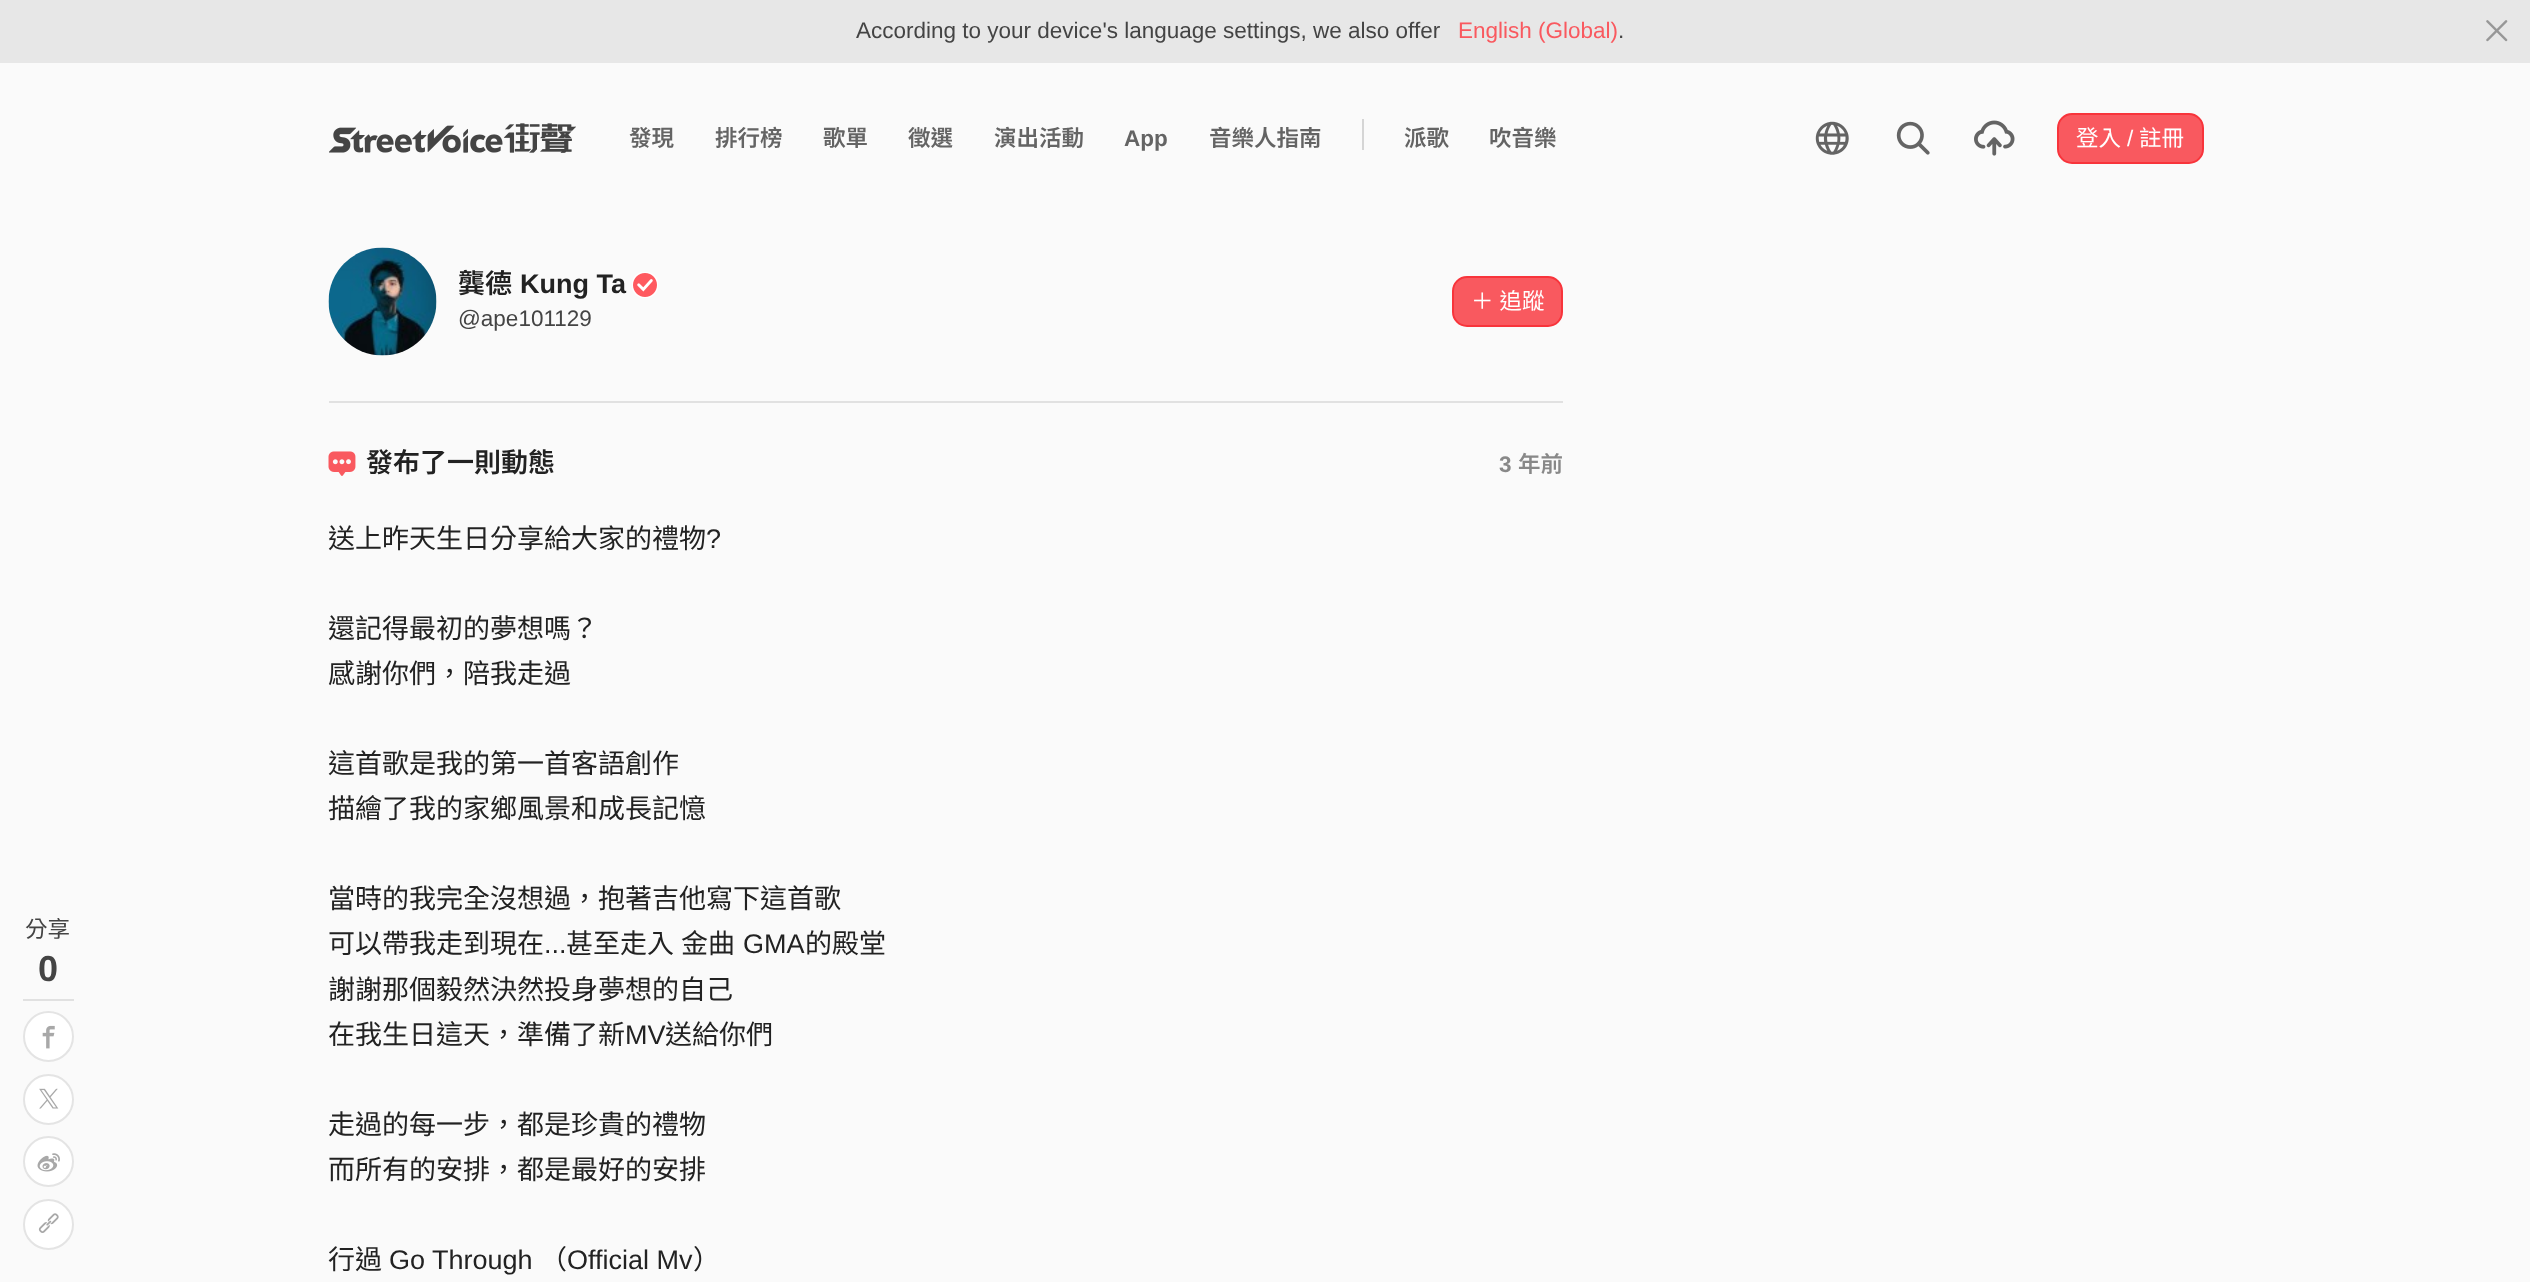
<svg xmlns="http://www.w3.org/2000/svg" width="2530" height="1282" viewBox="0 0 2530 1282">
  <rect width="100%" height="100%" fill="#fafafa"/>
  <rect x="0" y="0" width="2530" height="63" fill="#e7e7e7"/>
  <text x="856" y="38" font-family="Liberation Sans" font-size="22.5" fill="#444444">According to your device's language settings, we also offer</text>
  <text x="1458" y="38" font-family="Liberation Sans" font-size="22.5" fill="#f9595f">English (Global)</text>
  <text x="1618" y="38" font-family="Liberation Sans" font-size="22.5" fill="#444444">.</text>
  <image x="2486" y="20" width="22" height="22" href="img1.png"/>
  <image x="329" y="123" width="247" height="30" href="img2.png"/>
  <text x="629" y="146" font-family="Noto Sans TC" font-size="22.5" font-weight="600" fill="#646464">發現</text>
  <text x="715" y="146" font-family="Noto Sans TC" font-size="22.5" font-weight="600" fill="#646464">排行榜</text>
  <text x="823" y="146" font-family="Noto Sans TC" font-size="22.5" font-weight="600" fill="#646464">歌單</text>
  <text x="908" y="146" font-family="Noto Sans TC" font-size="22.5" font-weight="600" fill="#646464">徵選</text>
  <text x="994" y="146" font-family="Noto Sans TC" font-size="22.5" font-weight="600" fill="#646464">演出活動</text>
  <text x="1124" y="146" font-family="Liberation Sans" font-size="22.5" font-weight="bold" fill="#646464">App</text>
  <text x="1209" y="146" font-family="Noto Sans TC" font-size="22.5" font-weight="600" fill="#646464">音樂人指南</text>
  <rect x="1362" y="119" width="2" height="31" fill="#d5d5d5"/>
  <text x="1404" y="146" font-family="Noto Sans TC" font-size="22.5" font-weight="600" fill="#646464">派歌</text>
  <text x="1489" y="146" font-family="Noto Sans TC" font-size="22.5" font-weight="600" fill="#646464">吹音樂</text>
  <image x="1815" y="121" width="34" height="34" href="img3.png"/>
  <image x="1896" y="121" width="34" height="34" href="img4.png"/>
  <image x="1974" y="120" width="41" height="36" href="img5.png"/>
  <rect x="2058" y="114" width="145" height="49" rx="14" fill="#f9595f" stroke="#f8343b" stroke-width="2"/>
  <text x="2076" y="146" font-family="Noto Sans TC" font-size="22.5" fill="#ffffff">登入</text>
  <text x="2127" y="146" font-family="Liberation Sans" font-size="22.5" fill="#ffffff">/</text>
  <text x="2139" y="146" font-family="Noto Sans TC" font-size="22.5" fill="#ffffff">註冊</text>
  <text x="25" y="937" font-family="Noto Sans TC" font-size="22.5" fill="#444444">分享</text>
  <text x="38" y="981" font-family="Liberation Sans" font-size="36" font-weight="bold" fill="#444444">0</text>
  <rect x="23" y="999" width="51" height="2" fill="#e1e1e1"/>
  <circle cx="48.5" cy="1036.5" r="24.5" fill="#ffffff" stroke="#e4e4e4" stroke-width="2"/>
  <image x="42" y="1025" width="13" height="24" href="img6.png"/>
  <circle cx="48.5" cy="1099.5" r="24.5" fill="#ffffff" stroke="#e4e4e4" stroke-width="2"/>
  <image x="39" y="1088" width="20" height="21" href="img7.png"/>
  <circle cx="48.5" cy="1161.5" r="24.5" fill="#ffffff" stroke="#e4e4e4" stroke-width="2"/>
  <image x="37" y="1153" width="23" height="19" href="img8.png"/>
  <circle cx="48.5" cy="1224.5" r="24.5" fill="#ffffff" stroke="#e4e4e4" stroke-width="2"/>
  <image x="38" y="1213" width="21" height="20" href="img9.png"/>
  <image x="328" y="247" width="109" height="109" href="img10.png"/>
  <text x="458" y="293" font-family="Noto Sans TC" font-size="27" font-weight="600" fill="#222222">龔德</text>
  <text x="520" y="293" font-family="Liberation Sans" font-size="27" font-weight="bold" fill="#222222">Kung Ta</text>
  <image x="632" y="272" width="26" height="26" href="img11.png"/>
  <text x="458" y="326" font-family="Liberation Sans" font-size="22.5" fill="#444444">@ape101129</text>
  <rect x="1453" y="277" width="109" height="49" rx="14" fill="#f9595f" stroke="#f8343b" stroke-width="2"/>
  <text x="1471" y="309" word-spacing="1" font-family="Noto Sans TC" font-size="22.5" fill="#ffffff">＋ 追蹤</text>
  <rect x="329" y="401" width="1234" height="2" fill="#e1e1e1"/>
  <image x="328" y="451" width="28" height="25" href="img12.png"/>
  <text x="366" y="472" font-family="Noto Sans TC" font-size="27" font-weight="600" fill="#222222">發布了一則動態</text>
  <text x="1499" y="472" font-family="Liberation Sans" font-size="22.5" font-weight="bold" fill="#888888">3</text>
  <text x="1518" y="472" font-family="Noto Sans TC" font-size="22.5" font-weight="600" fill="#888888">年前</text>
  <text x="328" y="548" font-family="Noto Sans TC" font-size="27" fill="#222222">送上昨天生日分享給大家的禮物</text>
  <text x="706" y="548" font-family="Liberation Sans" font-size="27" fill="#222222">?</text>
  <text x="328" y="638" font-family="Noto Sans TC" font-size="27" fill="#222222">還記得最初的夢想嗎？</text>
  <text x="328" y="683" font-family="Noto Sans TC" font-size="27" fill="#222222">感謝你們，陪我走過</text>
  <text x="328" y="773" font-family="Noto Sans TC" font-size="27" fill="#222222">這首歌是我的第一首客語創作</text>
  <text x="328" y="818" font-family="Noto Sans TC" font-size="27" fill="#222222">描繪了我的家鄉風景和成長記憶</text>
  <text x="328" y="908" font-family="Noto Sans TC" font-size="27" fill="#222222">當時的我完全沒想過，抱著吉他寫下這首歌</text>
  <text x="328" y="953" font-family="Noto Sans TC" font-size="27" fill="#222222">可以帶我走到現在</text>
  <text x="544" y="953" font-family="Liberation Sans" font-size="27" fill="#222222">...</text>
  <text x="566" y="953" word-spacing="1" font-family="Noto Sans TC" font-size="27" fill="#222222">甚至走入 金曲</text>
  <text x="743" y="953" font-family="Liberation Sans" font-size="27" fill="#222222">GMA</text>
  <text x="805" y="953" font-family="Noto Sans TC" font-size="27" fill="#222222">的殿堂</text>
  <text x="328" y="999" font-family="Noto Sans TC" font-size="27" fill="#222222">謝謝那個毅然決然投身夢想的自己</text>
  <text x="328" y="1044" font-family="Noto Sans TC" font-size="27" fill="#222222">在我生日這天，準備了新</text>
  <text x="625" y="1044" font-family="Liberation Sans" font-size="27" fill="#222222">MV</text>
  <text x="665" y="1044" font-family="Noto Sans TC" font-size="27" fill="#222222">送給你們</text>
  <text x="328" y="1134" font-family="Noto Sans TC" font-size="27" fill="#222222">走過的每一步，都是珍貴的禮物</text>
  <text x="328" y="1179" font-family="Noto Sans TC" font-size="27" fill="#222222">而所有的安排，都是最好的安排</text>
  <text x="328" y="1269" font-family="Noto Sans TC" font-size="27" fill="#222222">行過</text>
  <text x="389" y="1269" font-family="Liberation Sans" font-size="27" fill="#222222">Go Through</text>
  <text x="540" y="1269" font-family="Noto Sans TC" font-size="27" fill="#222222">（</text>
  <text x="567" y="1269" font-family="Liberation Sans" font-size="27" fill="#222222">Official Mv</text>
  <text x="693" y="1269" font-family="Noto Sans TC" font-size="27" fill="#222222">）</text>
</svg>
